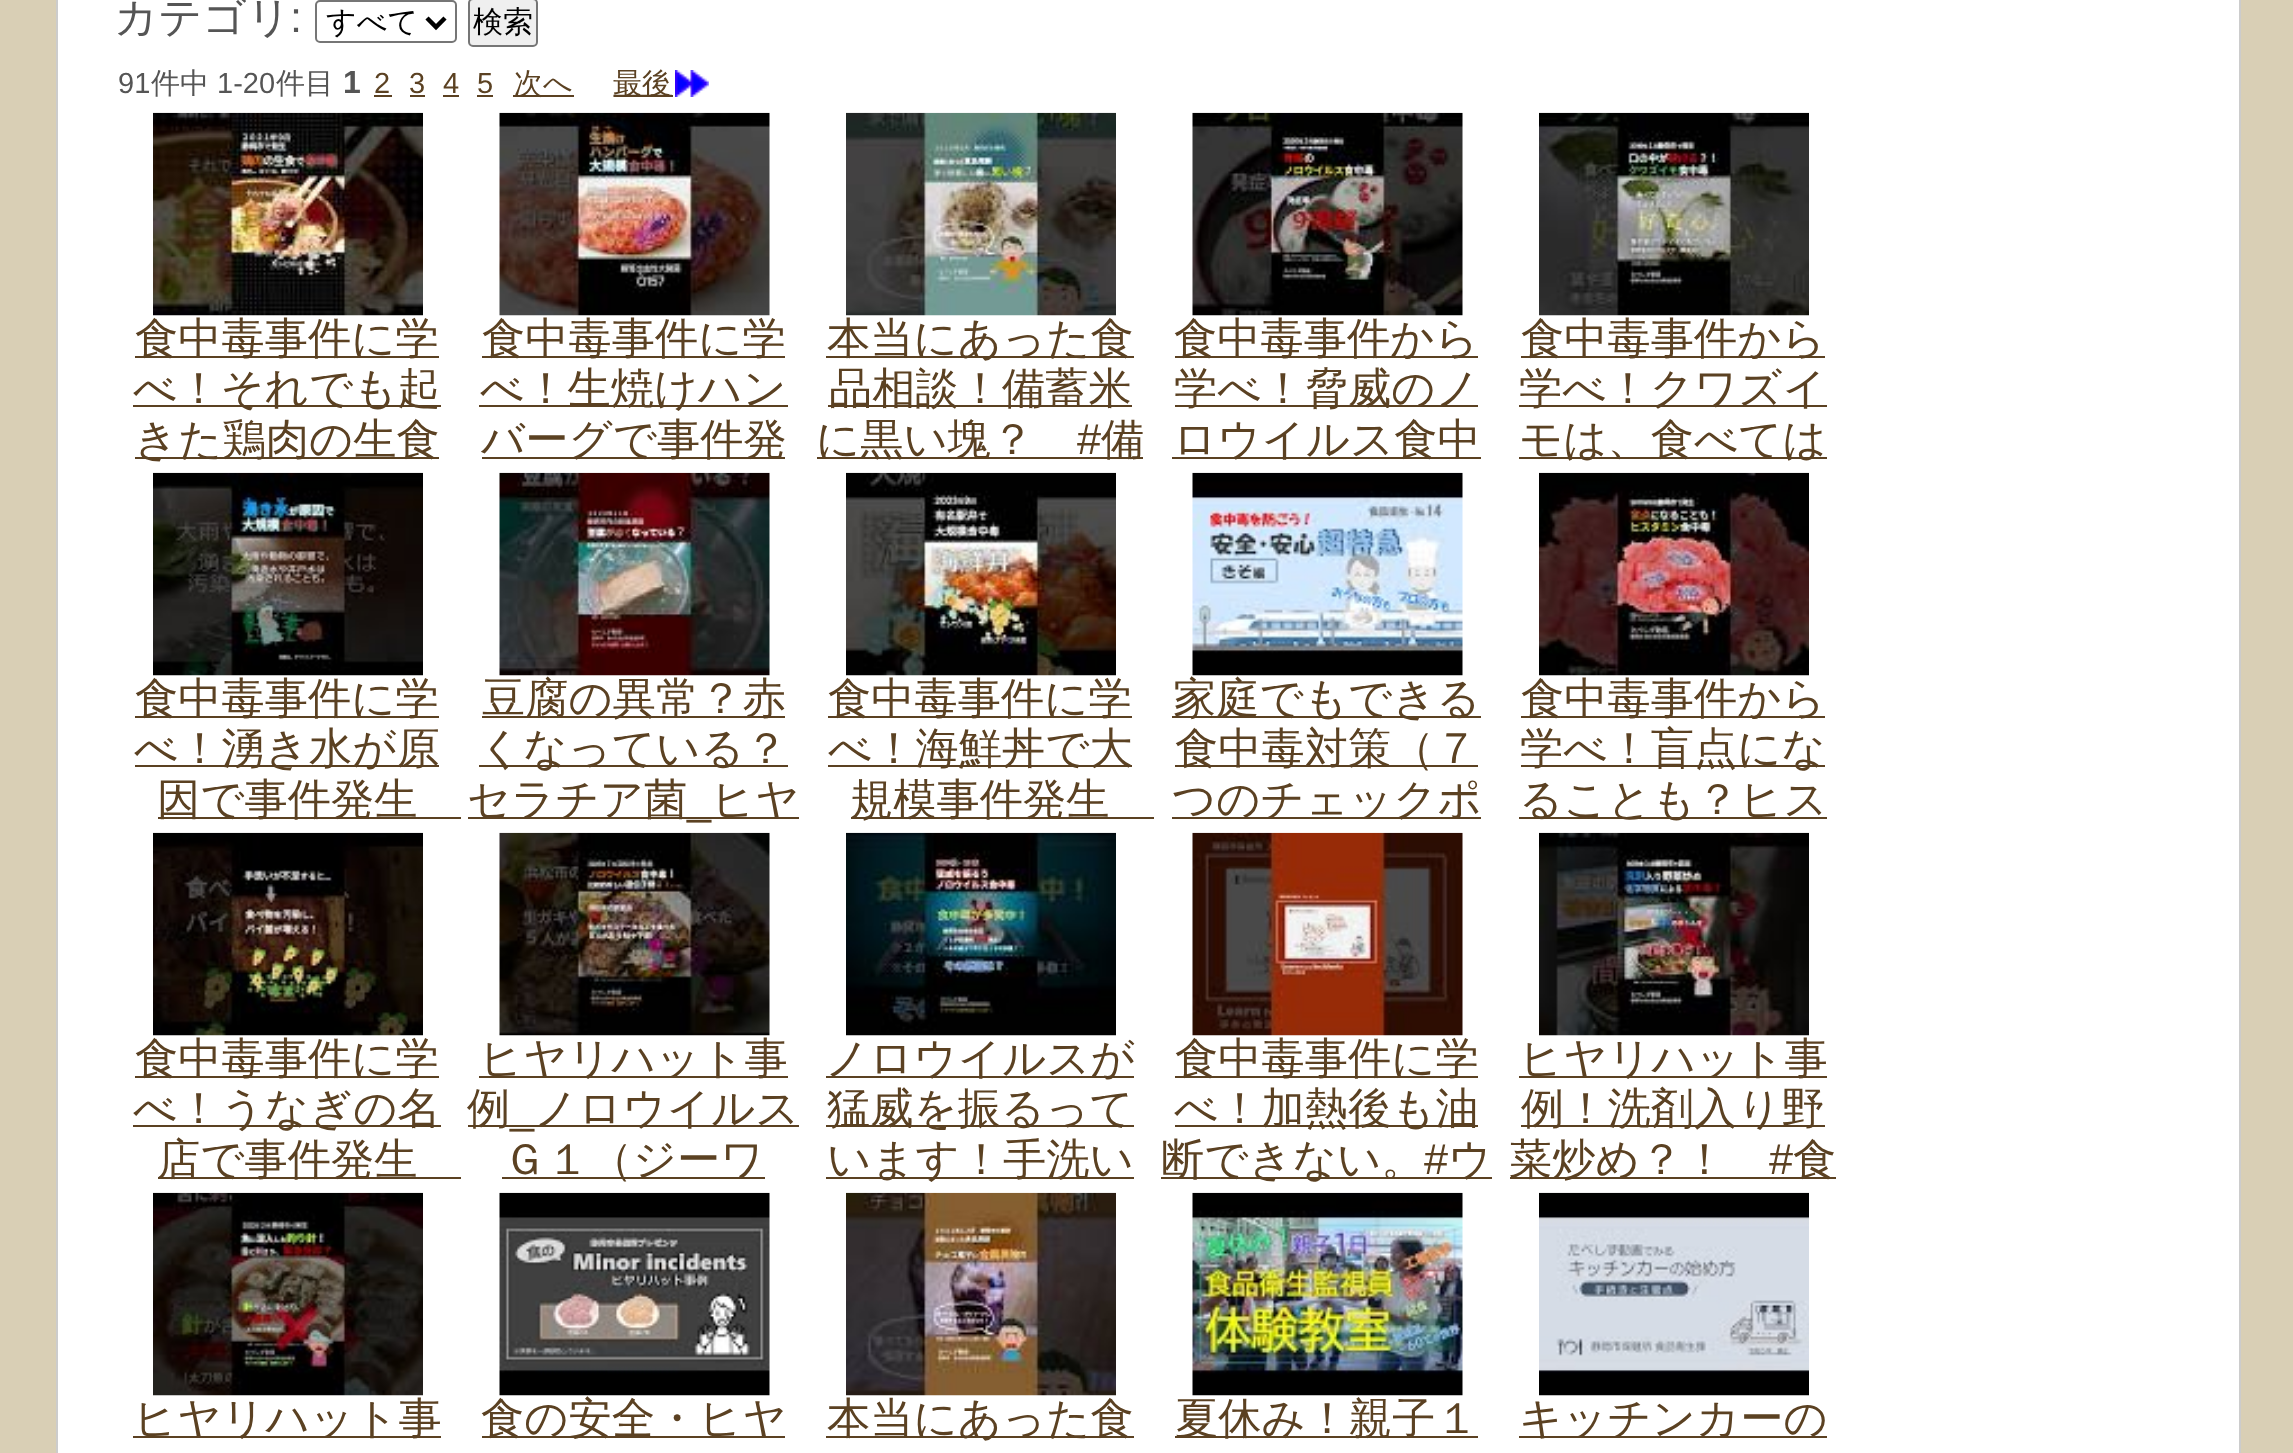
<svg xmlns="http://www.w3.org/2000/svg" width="2293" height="1453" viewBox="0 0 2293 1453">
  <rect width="100%" height="100%" fill="#d9cfb5"/>
  <rect x="58" y="0" width="2181" height="1453" fill="#ffffff"/>
  <rect x="2239" y="0" width="2" height="1453" fill="#cccccc"/>
  <rect x="56" y="0" width="2" height="1453" fill="#cccccc"/>
  <text x="114" y="32" font-family="WenQuanYi Zen Hei" font-size="43.25" font-weight="500" fill="#555555">カテゴリ</text>
  <text x="290" y="32" font-family="Liberation Sans" font-size="43.25" fill="#555555">:</text>
  <rect x="316" y="1" width="140" height="41" rx="4" fill="none" stroke="#767676" stroke-width="2"/>
  <path d="M427 18L436 27L445 18" fill="none" stroke="#000000" stroke-width="4.5"/>
  <text x="326" y="32" font-family="WenQuanYi Zen Hei" font-size="30" font-weight="500" fill="#000000">すべて</text>
  <rect x="469" y="-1" width="68" height="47" rx="4" fill="#efefef" stroke="#767676" stroke-width="2"/>
  <text x="473" y="32" font-family="WenQuanYi Zen Hei" font-size="30" font-weight="500" fill="#000000">検索</text>
  <text x="151" y="93" font-family="WenQuanYi Zen Hei" font-size="29" font-weight="500" fill="#555555">件中</text>
  <text x="276" y="93" font-family="WenQuanYi Zen Hei" font-size="29" font-weight="500" fill="#555555">件目</text>
  <rect x="513" y="95" width="61" height="2" fill="#5b4122"/>
  <text x="514" y="93" font-family="WenQuanYi Zen Hei" font-size="29" font-weight="500" fill="#5b4122">次へ</text>
  <image x="613" y="70" width="96" height="27" href="img1.png"/>
  <text x="613" y="93" font-family="WenQuanYi Zen Hei" font-size="29" font-weight="500" fill="#5b4122">最後</text>
  <rect x="671" y="95" width="2" height="2" fill="#5b4122"/>
  <text x="118" y="93" font-family="Liberation Sans" font-size="29" fill="#555555">91</text>
  <text x="217" y="93" font-family="Liberation Sans" font-size="29" fill="#555555">1-20</text>
  <text x="343" y="93" font-family="Liberation Sans" font-size="32" font-weight="bold" fill="#555555">1</text>
  <text x="374" y="93" font-family="Liberation Sans" font-size="29" fill="#5b4122">2</text>
  <rect x="374" y="95" width="18" height="2" fill="#5b4122"/>
  <text x="409" y="93" font-family="Liberation Sans" font-size="29" fill="#5b4122">3</text>
  <rect x="410" y="95" width="15" height="2" fill="#5b4122"/>
  <text x="443" y="93" font-family="Liberation Sans" font-size="29" fill="#5b4122">4</text>
  <rect x="443" y="95" width="16" height="2" fill="#5b4122"/>
  <text x="477" y="93" font-family="Liberation Sans" font-size="29" fill="#5b4122">5</text>
  <rect x="477" y="95" width="16" height="2" fill="#5b4122"/>
  <image x="153" y="112" width="270" height="204" href="img2.png"/>
  <rect x="135" y="356" width="304" height="2" fill="#5b4122"/>
  <text x="135" y="353" font-family="WenQuanYi Zen Hei" font-size="43.25" font-weight="500" fill="#5b4122">食中毒事件に学</text>
  <rect x="133" y="405" width="308" height="2" fill="#5b4122"/>
  <text x="133" y="403" font-family="WenQuanYi Zen Hei" font-size="43.25" font-weight="500" fill="#5b4122">べ！それでも起</text>
  <rect x="135" y="457" width="304" height="2" fill="#5b4122"/>
  <text x="134" y="454" font-family="WenQuanYi Zen Hei" font-size="43.25" font-weight="500" fill="#5b4122">きた鶏肉の生食</text>
  <image x="499" y="112" width="271" height="204" href="img3.png"/>
  <rect x="482" y="356" width="303" height="2" fill="#5b4122"/>
  <text x="482" y="353" font-family="WenQuanYi Zen Hei" font-size="43.25" font-weight="500" fill="#5b4122">食中毒事件に学</text>
  <rect x="479" y="405" width="309" height="2" fill="#5b4122"/>
  <text x="480" y="403" font-family="WenQuanYi Zen Hei" font-size="43.25" font-weight="500" fill="#5b4122">べ！生焼けハン</text>
  <rect x="482" y="457" width="303" height="2" fill="#5b4122"/>
  <text x="481" y="454" font-family="WenQuanYi Zen Hei" font-size="43.25" font-weight="500" fill="#5b4122">バーグで事件発</text>
  <image x="846" y="112" width="270" height="204" href="img4.png"/>
  <rect x="826" y="356" width="308" height="2" fill="#5b4122"/>
  <text x="827" y="353" font-family="WenQuanYi Zen Hei" font-size="43.25" font-weight="500" fill="#5b4122">本当にあった食</text>
  <rect x="828" y="405" width="304" height="2" fill="#5b4122"/>
  <text x="829" y="403" font-family="WenQuanYi Zen Hei" font-size="43.25" font-weight="500" fill="#5b4122">品相談！備蓄米</text>
  <rect x="817" y="457" width="326" height="2" fill="#5b4122"/>
  <text x="816" y="454" font-family="WenQuanYi Zen Hei" font-size="43.25" font-weight="500" fill="#5b4122">に黒い塊？</text>
  <text x="1077" y="454" font-family="Liberation Sans" font-size="43.25" fill="#5b4122">#</text>
  <text x="1101" y="454" font-family="WenQuanYi Zen Hei" font-size="43.25" font-weight="500" fill="#5b4122">備</text>
  <image x="1192" y="112" width="271" height="204" href="img5.png"/>
  <rect x="1175" y="356" width="303" height="2" fill="#5b4122"/>
  <text x="1174" y="353" font-family="WenQuanYi Zen Hei" font-size="43.25" font-weight="500" fill="#5b4122">食中毒事件から</text>
  <rect x="1175" y="405" width="303" height="2" fill="#5b4122"/>
  <text x="1174" y="403" font-family="WenQuanYi Zen Hei" font-size="43.25" font-weight="500" fill="#5b4122">学べ！脅威のノ</text>
  <rect x="1172" y="457" width="309" height="2" fill="#5b4122"/>
  <text x="1173" y="454" font-family="WenQuanYi Zen Hei" font-size="43.25" font-weight="500" fill="#5b4122">ロウイルス食中</text>
  <image x="1539" y="112" width="270" height="204" href="img6.png"/>
  <rect x="1521" y="356" width="304" height="2" fill="#5b4122"/>
  <text x="1521" y="353" font-family="WenQuanYi Zen Hei" font-size="43.25" font-weight="500" fill="#5b4122">食中毒事件から</text>
  <rect x="1519" y="405" width="308" height="2" fill="#5b4122"/>
  <text x="1519" y="403" font-family="WenQuanYi Zen Hei" font-size="43.25" font-weight="500" fill="#5b4122">学べ！クワズイ</text>
  <rect x="1519" y="457" width="308" height="2" fill="#5b4122"/>
  <text x="1519" y="454" font-family="WenQuanYi Zen Hei" font-size="43.25" font-weight="500" fill="#5b4122">モは、食べては</text>
  <image x="153" y="472" width="270" height="204" href="img7.png"/>
  <rect x="135" y="716" width="304" height="2" fill="#5b4122"/>
  <text x="135" y="713" font-family="WenQuanYi Zen Hei" font-size="43.25" font-weight="500" fill="#5b4122">食中毒事件に学</text>
  <rect x="135" y="765" width="304" height="2" fill="#5b4122"/>
  <text x="134" y="763" font-family="WenQuanYi Zen Hei" font-size="43.25" font-weight="500" fill="#5b4122">べ！湧き水が原</text>
  <rect x="158" y="817" width="303" height="2" fill="#5b4122"/>
  <text x="157" y="814" font-family="WenQuanYi Zen Hei" font-size="43.25" font-weight="500" fill="#5b4122">因で事件発生</text>
  <image x="499" y="472" width="271" height="204" href="img8.png"/>
  <rect x="482" y="716" width="303" height="2" fill="#5b4122"/>
  <text x="482" y="713" font-family="WenQuanYi Zen Hei" font-size="43.25" font-weight="500" fill="#5b4122">豆腐の異常？赤</text>
  <rect x="479" y="765" width="309" height="2" fill="#5b4122"/>
  <text x="479" y="763" font-family="WenQuanYi Zen Hei" font-size="43.25" font-weight="500" fill="#5b4122">くなっている？</text>
  <rect x="468" y="817" width="331" height="2" fill="#5b4122"/>
  <text x="467" y="814" font-family="WenQuanYi Zen Hei" font-size="43.25" font-weight="500" fill="#5b4122">セラチア菌</text>
  <text x="711" y="814" font-family="WenQuanYi Zen Hei" font-size="43.25" font-weight="500" fill="#5b4122">ヒヤ</text>
  <text x="687" y="814" font-family="Liberation Sans" font-size="43.25" fill="#5b4122">_</text>
  <image x="846" y="472" width="270" height="204" href="img9.png"/>
  <rect x="828" y="716" width="304" height="2" fill="#5b4122"/>
  <text x="828" y="713" font-family="WenQuanYi Zen Hei" font-size="43.25" font-weight="500" fill="#5b4122">食中毒事件に学</text>
  <rect x="828" y="765" width="304" height="2" fill="#5b4122"/>
  <text x="828" y="763" font-family="WenQuanYi Zen Hei" font-size="43.25" font-weight="500" fill="#5b4122">べ！海鮮丼で大</text>
  <rect x="851" y="817" width="303" height="2" fill="#5b4122"/>
  <text x="850" y="814" font-family="WenQuanYi Zen Hei" font-size="43.25" font-weight="500" fill="#5b4122">規模事件発生</text>
  <image x="1192" y="472" width="271" height="204" href="img10.png"/>
  <rect x="1172" y="716" width="309" height="2" fill="#5b4122"/>
  <text x="1173" y="713" font-family="WenQuanYi Zen Hei" font-size="43.25" font-weight="500" fill="#5b4122">家庭でもできる</text>
  <rect x="1175" y="765" width="303" height="2" fill="#5b4122"/>
  <text x="1175" y="763" font-family="WenQuanYi Zen Hei" font-size="43.25" font-weight="500" fill="#5b4122">食中毒対策（７</text>
  <rect x="1172" y="817" width="309" height="2" fill="#5b4122"/>
  <text x="1172" y="814" font-family="WenQuanYi Zen Hei" font-size="43.25" font-weight="500" fill="#5b4122">つのチェックポ</text>
  <image x="1539" y="472" width="270" height="204" href="img11.png"/>
  <rect x="1521" y="716" width="304" height="2" fill="#5b4122"/>
  <text x="1521" y="713" font-family="WenQuanYi Zen Hei" font-size="43.25" font-weight="500" fill="#5b4122">食中毒事件から</text>
  <rect x="1521" y="765" width="304" height="2" fill="#5b4122"/>
  <text x="1520" y="763" font-family="WenQuanYi Zen Hei" font-size="43.25" font-weight="500" fill="#5b4122">学べ！盲点にな</text>
  <rect x="1519" y="817" width="308" height="2" fill="#5b4122"/>
  <text x="1519" y="814" font-family="WenQuanYi Zen Hei" font-size="43.25" font-weight="500" fill="#5b4122">ることも？ヒス</text>
  <image x="153" y="832" width="270" height="204" href="img12.png"/>
  <rect x="135" y="1076" width="304" height="2" fill="#5b4122"/>
  <text x="135" y="1073" font-family="WenQuanYi Zen Hei" font-size="43.25" font-weight="500" fill="#5b4122">食中毒事件に学</text>
  <rect x="133" y="1125" width="308" height="2" fill="#5b4122"/>
  <text x="133" y="1123" font-family="WenQuanYi Zen Hei" font-size="43.25" font-weight="500" fill="#5b4122">べ！うなぎの名</text>
  <rect x="158" y="1177" width="303" height="2" fill="#5b4122"/>
  <text x="157" y="1174" font-family="WenQuanYi Zen Hei" font-size="43.25" font-weight="500" fill="#5b4122">店で事件発生</text>
  <image x="499" y="832" width="271" height="204" href="img13.png"/>
  <rect x="479" y="1076" width="309" height="2" fill="#5b4122"/>
  <text x="479" y="1073" font-family="WenQuanYi Zen Hei" font-size="43.25" font-weight="500" fill="#5b4122">ヒヤリハット事</text>
  <rect x="468" y="1125" width="331" height="2" fill="#5b4122"/>
  <text x="467" y="1123" font-family="WenQuanYi Zen Hei" font-size="43.25" font-weight="500" fill="#5b4122">例</text>
  <text x="534" y="1123" font-family="WenQuanYi Zen Hei" font-size="43.25" font-weight="500" fill="#5b4122">ノロウイルス</text>
  <text x="510" y="1123" font-family="Liberation Sans" font-size="43.25" fill="#5b4122">_</text>
  <rect x="502" y="1177" width="263" height="2" fill="#5b4122"/>
  <text x="503" y="1174" font-family="WenQuanYi Zen Hei" font-size="43.25" font-weight="500" fill="#5b4122">Ｇ１（ジーワ</text>
  <image x="846" y="832" width="270" height="204" href="img14.png"/>
  <rect x="826" y="1076" width="308" height="2" fill="#5b4122"/>
  <text x="825" y="1073" font-family="WenQuanYi Zen Hei" font-size="43.25" font-weight="500" fill="#5b4122">ノロウイルスが</text>
  <rect x="826" y="1125" width="308" height="2" fill="#5b4122"/>
  <text x="827" y="1123" font-family="WenQuanYi Zen Hei" font-size="43.25" font-weight="500" fill="#5b4122">猛威を振るって</text>
  <rect x="826" y="1177" width="308" height="2" fill="#5b4122"/>
  <text x="827" y="1174" font-family="WenQuanYi Zen Hei" font-size="43.25" font-weight="500" fill="#5b4122">います！手洗い</text>
  <image x="1192" y="832" width="271" height="204" href="img15.png"/>
  <rect x="1175" y="1076" width="303" height="2" fill="#5b4122"/>
  <text x="1175" y="1073" font-family="WenQuanYi Zen Hei" font-size="43.25" font-weight="500" fill="#5b4122">食中毒事件に学</text>
  <rect x="1175" y="1125" width="303" height="2" fill="#5b4122"/>
  <text x="1174" y="1123" font-family="WenQuanYi Zen Hei" font-size="43.25" font-weight="500" fill="#5b4122">べ！加熱後も油</text>
  <rect x="1161" y="1177" width="331" height="2" fill="#5b4122"/>
  <text x="1161" y="1174" font-family="WenQuanYi Zen Hei" font-size="43.25" font-weight="500" fill="#5b4122">断できない。</text>
  <text x="1424" y="1174" font-family="Liberation Sans" font-size="43.25" fill="#5b4122">#</text>
  <text x="1448" y="1174" font-family="WenQuanYi Zen Hei" font-size="43.25" font-weight="500" fill="#5b4122">ウ</text>
  <image x="1539" y="832" width="270" height="204" href="img16.png"/>
  <rect x="1519" y="1076" width="308" height="2" fill="#5b4122"/>
  <text x="1519" y="1073" font-family="WenQuanYi Zen Hei" font-size="43.25" font-weight="500" fill="#5b4122">ヒヤリハット事</text>
  <rect x="1521" y="1125" width="304" height="2" fill="#5b4122"/>
  <text x="1521" y="1123" font-family="WenQuanYi Zen Hei" font-size="43.25" font-weight="500" fill="#5b4122">例！洗剤入り野</text>
  <rect x="1510" y="1177" width="326" height="2" fill="#5b4122"/>
  <text x="1509" y="1174" font-family="WenQuanYi Zen Hei" font-size="43.25" font-weight="500" fill="#5b4122">菜炒め？！</text>
  <text x="1769" y="1174" font-family="Liberation Sans" font-size="43.25" fill="#5b4122">#</text>
  <text x="1793" y="1174" font-family="WenQuanYi Zen Hei" font-size="43.25" font-weight="500" fill="#5b4122">食</text>
  <image x="153" y="1192" width="270" height="204" href="img17.png"/>
  <rect x="133" y="1436" width="308" height="2" fill="#5b4122"/>
  <text x="133" y="1433" font-family="WenQuanYi Zen Hei" font-size="43.25" font-weight="500" fill="#5b4122">ヒヤリハット事</text>
  <image x="499" y="1192" width="271" height="204" href="img18.png"/>
  <rect x="482" y="1436" width="303" height="2" fill="#5b4122"/>
  <text x="481" y="1433" font-family="WenQuanYi Zen Hei" font-size="43.25" font-weight="500" fill="#5b4122">食の安全・ヒヤ</text>
  <image x="846" y="1192" width="270" height="204" href="img19.png"/>
  <rect x="826" y="1436" width="308" height="2" fill="#5b4122"/>
  <text x="827" y="1433" font-family="WenQuanYi Zen Hei" font-size="43.25" font-weight="500" fill="#5b4122">本当にあった食</text>
  <image x="1192" y="1192" width="271" height="204" href="img20.png"/>
  <rect x="1175" y="1436" width="303" height="2" fill="#5b4122"/>
  <text x="1175" y="1433" font-family="WenQuanYi Zen Hei" font-size="43.25" font-weight="500" fill="#5b4122">夏休み！親子１</text>
  <image x="1539" y="1192" width="270" height="204" href="img21.png"/>
  <rect x="1519" y="1436" width="308" height="2" fill="#5b4122"/>
  <text x="1519" y="1433" font-family="WenQuanYi Zen Hei" font-size="43.25" font-weight="500" fill="#5b4122">キッチンカーの</text>
</svg>
